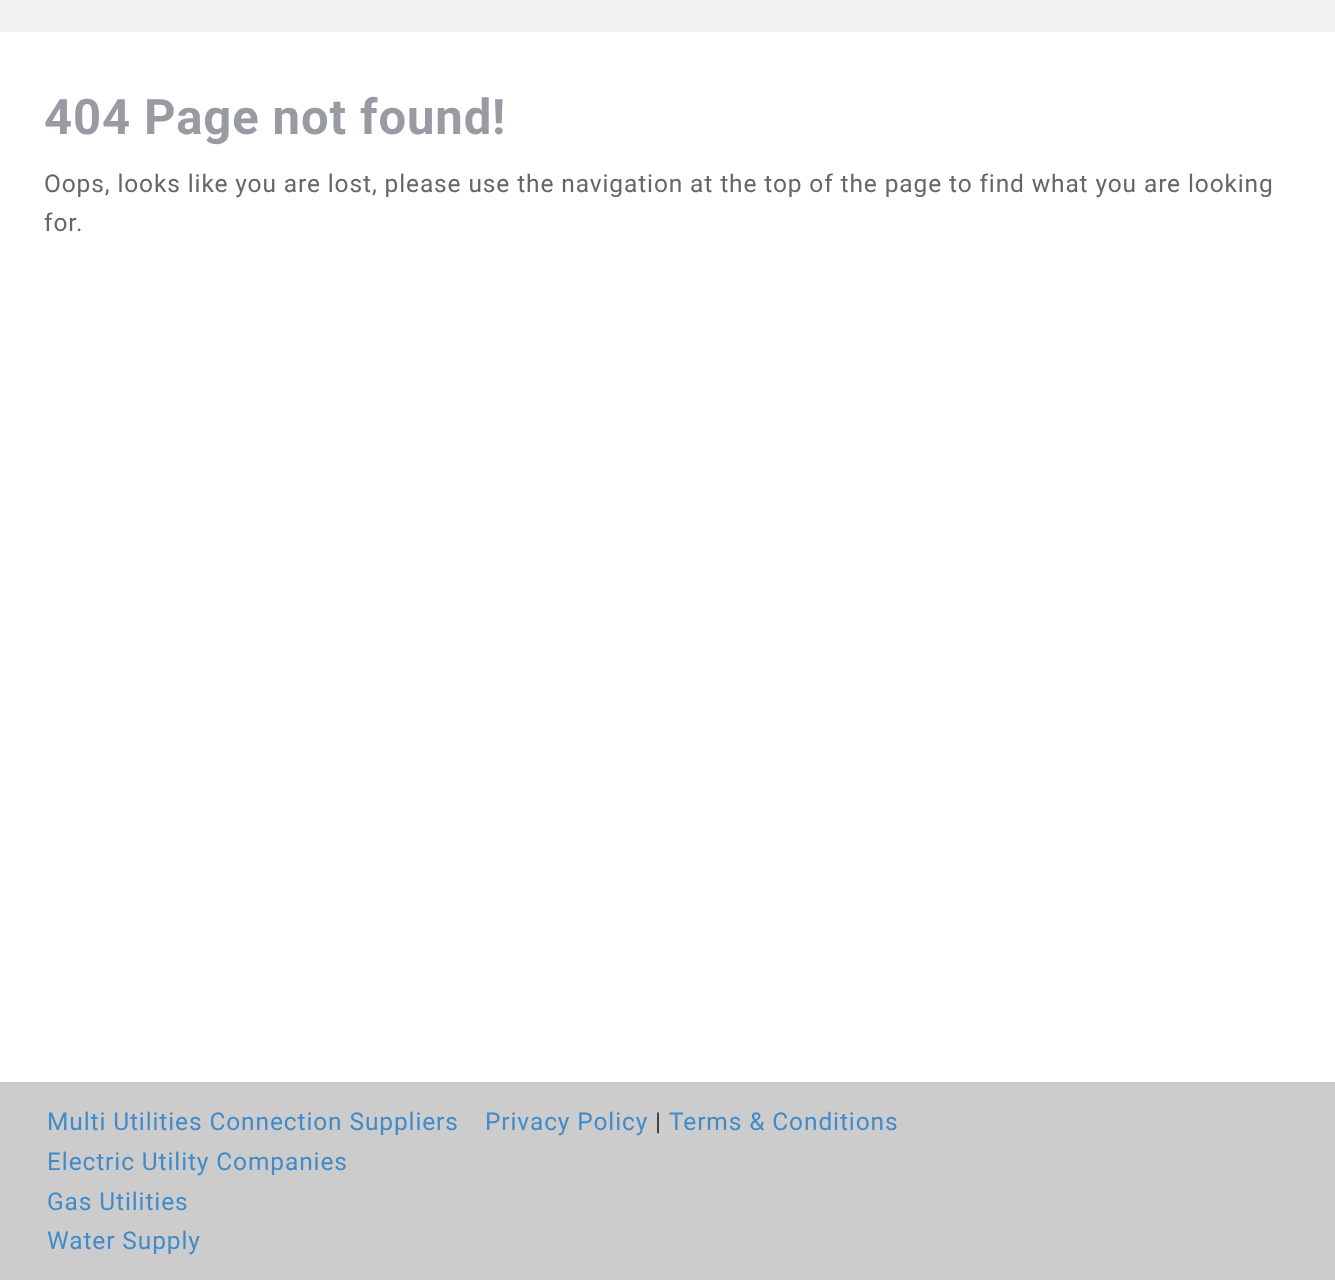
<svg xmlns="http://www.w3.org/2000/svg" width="1335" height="1280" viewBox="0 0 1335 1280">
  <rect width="100%" height="100%" fill="#f1f1f1"/>
  <rect x="0" y="32" width="1335" height="1050" fill="#ffffff"/>
  <text x="44" y="134" font-family="Roboto" font-size="49" font-weight="bold" letter-spacing="0.88" fill="#999ba3">404 Page not found!</text>
  <text x="44" y="192" font-family="Roboto" font-size="24.5" letter-spacing="0.88" fill="#666666">Oops, looks like you are lost, please use the navigation at the top of the page to find what you are looking</text>
  <text x="44" y="231" font-family="Roboto" font-size="24.5" letter-spacing="0.88" fill="#666666">for.</text>
  <rect x="0" y="1082" width="1335" height="198" fill="#cccccc"/>
  <text x="47" y="1130" font-family="Roboto" font-size="24.5" letter-spacing="0.88" fill="#428bca">Multi Utilities Connection Suppliers</text>
  <text x="47" y="1170" font-family="Roboto" font-size="24.5" letter-spacing="0.88" fill="#428bca">Electric Utility Companies</text>
  <text x="47" y="1210" font-family="Roboto" font-size="24.5" letter-spacing="0.88" fill="#428bca">Gas Utilities</text>
  <text x="47" y="1249" font-family="Roboto" font-size="24.5" letter-spacing="0.88" fill="#428bca">Water Supply</text>
  <text x="485" y="1130" font-family="Roboto" font-size="24.5" letter-spacing="0.88" fill="#428bca">Privacy Policy</text>
  <text x="655" y="1130" font-family="Roboto" font-size="24.5" letter-spacing="0.88" fill="#333333">|</text>
  <text x="669" y="1130" font-family="Roboto" font-size="24.5" letter-spacing="0.88" fill="#428bca">Terms &amp; Conditions</text>
</svg>
